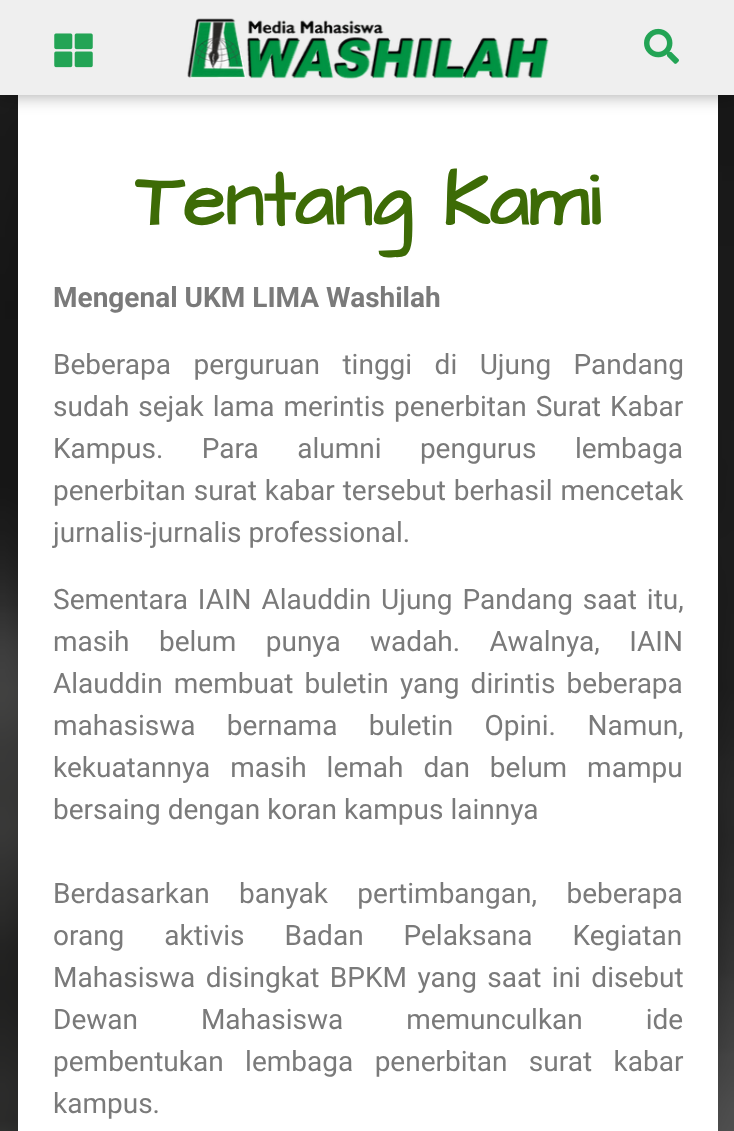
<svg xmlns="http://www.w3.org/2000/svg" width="734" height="1131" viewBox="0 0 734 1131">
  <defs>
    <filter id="blur1" x="-50%" y="-200%" width="200%" height="500%"><feGaussianBlur stdDeviation="9"/></filter>
  </defs>
  <rect width="100%" height="100%" fill="#ffffff"/>
  <image x="0" y="95" width="734" height="1036" href="img4.png"/>
  <rect x="18" y="95" width="700" height="1036" fill="#ffffff"/>
  <rect x="0" y="0" width="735" height="95" fill="#000000" fill-opacity="0.36" filter="url(#blur1)"/>
  <rect x="0" y="0" width="734" height="95" fill="#efefef"/>
  <image x="54" y="33" width="39" height="35" href="img1.png"/>
  <image x="187" y="18" width="362" height="61" href="img2.png"/>
  <image x="644" y="28" width="35" height="36" href="img3.png"/>
  <text x="135" y="225" font-family="Architects Daughter" font-size="77" font-weight="bold" fill="#3d6b06">Tentang Kami</text>
  <text x="53" y="307" font-family="Roboto" font-size="28" font-weight="bold" fill="#7a7a7a">Mengenal UKM LIMA Washilah</text>
  <text x="53" y="374" word-spacing="15.5" font-family="Roboto" font-size="28" fill="#7a7a7a">Beberapa perguruan tinggi di Ujung Pandang</text>
  <text x="53" y="416" word-spacing="2" font-family="Roboto" font-size="28" fill="#7a7a7a">sudah sejak lama merintis penerbitan Surat Kabar</text>
  <text x="53" y="458" word-spacing="31.5" font-family="Roboto" font-size="28" fill="#7a7a7a">Kampus. Para alumni pengurus lembaga</text>
  <text x="53" y="500" word-spacing="1" font-family="Roboto" font-size="28" fill="#7a7a7a">penerbitan surat kabar tersebut berhasil mencetak</text>
  <text x="53" y="542" font-family="Roboto" font-size="28" fill="#7a7a7a">jurnalis-jurnalis professional.</text>
  <text x="53" y="609" word-spacing="3" font-family="Roboto" font-size="28" fill="#7a7a7a">Sementara IAIN Alauddin Ujung Pandang saat itu,</text>
  <text x="53" y="651" word-spacing="22.5" font-family="Roboto" font-size="28" fill="#7a7a7a">masih belum punya wadah. Awalnya, IAIN</text>
  <text x="53" y="693" word-spacing="4.25" font-family="Roboto" font-size="28" fill="#7a7a7a">Alauddin membuat buletin yang dirintis beberapa</text>
  <text x="53" y="735" word-spacing="24.5" font-family="Roboto" font-size="28" fill="#7a7a7a">mahasiswa bernama buletin Opini. Namun,</text>
  <text x="53" y="777" word-spacing="13" font-family="Roboto" font-size="28" fill="#7a7a7a">kekuatannya masih lemah dan belum mampu</text>
  <text x="53" y="819" font-family="Roboto" font-size="28" fill="#7a7a7a">bersaing dengan koran kampus lainnya</text>
  <text x="53" y="903" word-spacing="22.5" font-family="Roboto" font-size="28" fill="#7a7a7a">Berdasarkan banyak pertimbangan, beberapa</text>
  <text x="53" y="945" word-spacing="33" font-family="Roboto" font-size="28" fill="#7a7a7a">orang aktivis Badan Pelaksana Kegiatan</text>
  <text x="53" y="987" word-spacing="3.5" font-family="Roboto" font-size="28" fill="#7a7a7a">Mahasiswa disingkat BPKM yang saat ini disebut</text>
  <text x="53" y="1029" word-spacing="56" font-family="Roboto" font-size="28" fill="#7a7a7a">Dewan Mahasiswa memunculkan ide</text>
  <text x="53" y="1071" word-spacing="14.5" font-family="Roboto" font-size="28" fill="#7a7a7a">pembentukan lembaga penerbitan surat kabar</text>
  <text x="53" y="1113" font-family="Roboto" font-size="28" fill="#7a7a7a">kampus.</text>
</svg>
